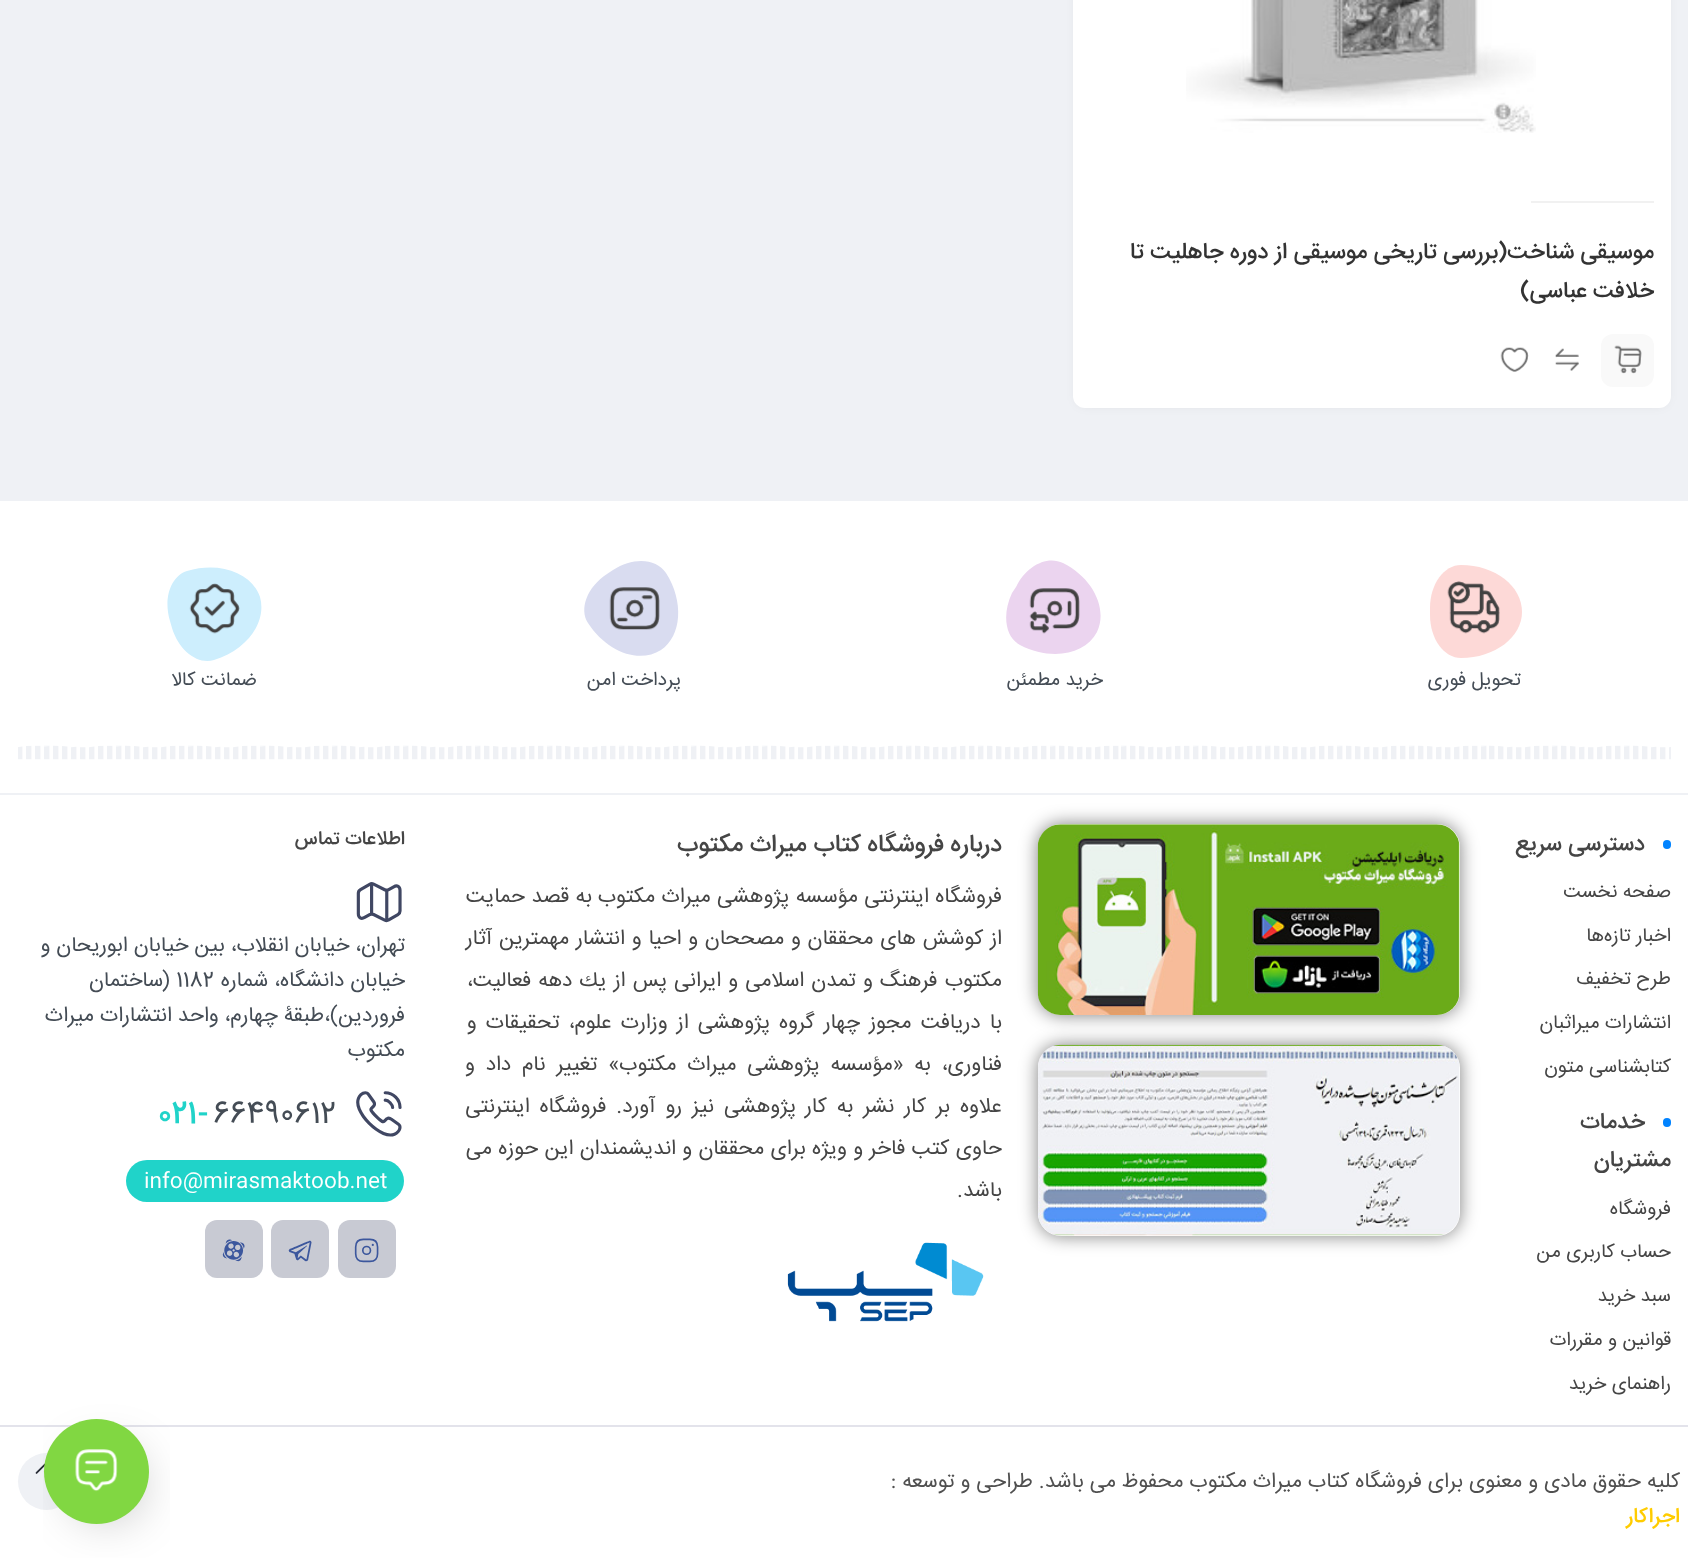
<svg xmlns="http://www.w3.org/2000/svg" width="1688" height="1558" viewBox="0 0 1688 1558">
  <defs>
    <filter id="blur1" x="-50%" y="-200%" width="200%" height="500%"><feGaussianBlur stdDeviation="6"/></filter>
    <filter id="blur2" x="-50%" y="-200%" width="200%" height="500%"><feGaussianBlur stdDeviation="9"/></filter>
    <filter id="blur3" x="-50%" y="-200%" width="200%" height="500%"><feGaussianBlur stdDeviation="24.5"/></filter>
  </defs>
  <rect width="100%" height="100%" fill="#eff1f5"/>
  <rect x="1078" y="-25" width="588" height="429" rx="7" fill="#000000" fill-opacity="0.1" filter="url(#blur1)"/>
  <rect x="1073" y="-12" width="598" height="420" rx="12" fill="#ffffff"/>
  <image x="1186" y="0" width="350" height="133" href="img1.png"/>
  <rect x="1531" y="201" width="123" height="2" fill="#f1f1f1"/>
  <text x="1654" y="258" font-family="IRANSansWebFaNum" font-size="22.75" font-weight="500" direction="rtl" fill="#333333">موسیقی شناخت(بررسی تاریخی موسیقی از دوره جاهلیت تا</text>
  <text x="1654" y="297" font-family="IRANSansWebFaNum" font-size="22.75" font-weight="500" direction="rtl" fill="#333333">خلافت عباسی)</text>
  <rect x="1601" y="334" width="53" height="53" rx="12" fill="#f9f9f9"/>
  <image x="1614" y="345" width="28" height="29" href="img2.png"/>
  <image x="1555" y="348" width="24" height="23" href="img3.png"/>
  <image x="1500" y="347" width="29" height="25" href="img4.png"/>
  <rect x="0" y="501" width="1688" height="292" fill="#ffffff"/>
  <path d="M1461 565C1495 565 1522 586 1522 612C1522 637 1495 658 1461 658C1444 658 1430 639 1430 615V608C1430 584 1444 565 1461 565Z" fill="#fdd9d7"/>
  <image x="1447" y="581" width="53" height="53" href="img5.png"/>
  <text x="1521" y="685" font-family="IRANSansWebFaNum" font-size="19.25" direction="rtl" fill="#444c55">تحویل فوری</text>
  <path d="M1063 563C1093 578 1108 609 1097 632C1085 655 1051 661 1020 645C1005 637 1002 614 1012 593L1016 587C1026 566 1047 555 1063 563Z" fill="#ebd4ef"/>
  <image x="1029" y="588" width="51" height="46" href="img6.png"/>
  <text x="1103" y="685" font-family="IRANSansWebFaNum" font-size="19.25" direction="rtl" fill="#444c55">خرید مطمئن</text>
  <path d="M666 573C684 601 682 636 661 650C639 664 607 652 588 623C579 609 587 587 607 574L613 570C633 557 656 558 666 573Z" fill="#d9dcf0"/>
  <image x="609" y="587" width="51" height="43" href="img7.png"/>
  <text x="681" y="685" font-family="IRANSansWebFaNum" font-size="19.25" direction="rtl" fill="#444c55">پرداخت امن</text>
  <path d="M187 571C220 561 252 573 260 597C267 622 247 650 214 660C198 665 179 651 172 628L170 621C163 598 171 576 187 571Z" fill="#cdeefd"/>
  <image x="189" y="583" width="51" height="51" href="img8.png"/>
  <text x="257" y="685" font-family="IRANSansWebFaNum" font-size="19.25" direction="rtl" fill="#444c55">ضمانت کالا</text>
  <image x="18" y="745" width="1653" height="15" href="img9.png"/>
  <rect x="0" y="795" width="1688" height="630" fill="#ffffff"/>
  <rect x="1663" y="840" width="8" height="9" rx="4" fill="#0183ff"/>
  <text x="1645" y="850" font-family="IRANSansWebFaNum" font-size="22.75" font-weight="500" direction="rtl" fill="#454545">دسترسی سریع</text>
  <text x="1671" y="897" font-family="IRANSansWebFaNum" font-size="19.25" direction="rtl" fill="#454545">صفحه نخست</text>
  <text x="1671" y="941" font-family="IRANSansWebFaNum" font-size="19.25" direction="rtl" fill="#454545">اخبار تازه‌ها</text>
  <text x="1671" y="984" font-family="IRANSansWebFaNum" font-size="19.25" direction="rtl" fill="#454545">طرح تخفیف</text>
  <text x="1671" y="1028" font-family="IRANSansWebFaNum" font-size="19.25" direction="rtl" fill="#454545">انتشارات میراثبان</text>
  <text x="1671" y="1072" font-family="IRANSansWebFaNum" font-size="19.25" direction="rtl" fill="#454545">کتابشناسی متون</text>
  <rect x="1663" y="1118" width="8" height="9" rx="4" fill="#0183ff"/>
  <text x="1645" y="1128" font-family="IRANSansWebFaNum" font-size="22.75" font-weight="500" direction="rtl" fill="#454545">خدمات</text>
  <text x="1671" y="1166" font-family="IRANSansWebFaNum" font-size="22.75" font-weight="500" direction="rtl" fill="#454545">مشتریان</text>
  <text x="1671" y="1214" font-family="IRANSansWebFaNum" font-size="19.25" direction="rtl" fill="#454545">فروشگاه</text>
  <text x="1671" y="1257" font-family="IRANSansWebFaNum" font-size="19.25" direction="rtl" fill="#454545">حساب کاربری من</text>
  <text x="1671" y="1301" font-family="IRANSansWebFaNum" font-size="19.25" direction="rtl" fill="#454545">سبد خرید</text>
  <text x="1671" y="1345" font-family="IRANSansWebFaNum" font-size="19.25" direction="rtl" fill="#454545">قوانین و مقررات</text>
  <text x="1671" y="1389" font-family="IRANSansWebFaNum" font-size="19.25" direction="rtl" fill="#454545">راهنمای خرید</text>
  <rect x="1038" y="824" width="422" height="191" rx="23" fill="#000000" fill-opacity="0.5" filter="url(#blur2)"/>
  <rect x="1038" y="824" width="422" height="191" rx="23" fill="#ffffff"/>
  <image x="1037" y="824" width="423" height="191" href="img10.png"/>
  <rect x="1038" y="1045" width="422" height="191" rx="23" fill="#000000" fill-opacity="0.5" filter="url(#blur2)"/>
  <rect x="1038" y="1045" width="422" height="191" rx="23" fill="#ffffff"/>
  <image x="1038" y="1044" width="422" height="192" href="img11.png"/>
  <text x="1002" y="851" font-family="IRANSansWebFaNum" font-size="24.5" font-weight="500" direction="rtl" fill="#454545">درباره فروشگاه کتاب میراث مکتوب</text>
  <text x="1002" y="902" word-spacing="0.5" font-family="IRANSansWebFaNum" font-size="21" direction="rtl" fill="#454545">فروشگاه اینترنتی مؤسسه پژوهشی میراث مكتوب</text>
  <text x="592" y="902" word-spacing="0.5" font-family="IRANSansWebFaNum" font-size="21" direction="rtl" fill="#454545">به قصد حمایت</text>
  <text x="1002" y="944" word-spacing="0.9" font-family="IRANSansWebFaNum" font-size="21" direction="rtl" fill="#454545">از كوشش های محققان و مصححان و احیا و انتشار مهمترین آثار</text>
  <text x="1002" y="986" word-spacing="1.25" font-family="IRANSansWebFaNum" font-size="21" direction="rtl" fill="#454545">مكتوب فرهنگ و تمدن اسلامی و ایرانی پس از یك دهه فعالیت،</text>
  <text x="1002" y="1028" word-spacing="3.25" font-family="IRANSansWebFaNum" font-size="21" direction="rtl" fill="#454545">با دریافت مجوز چهار گروه پژوهشی از وزارت علوم، تحقیقات و</text>
  <text x="1002" y="1070" word-spacing="5" font-family="IRANSansWebFaNum" font-size="21" direction="rtl" fill="#454545">فناوری، به «مؤسسه پژوهشی میراث مكتوب» تغییر نام داد و</text>
  <text x="1002" y="1112" word-spacing="4" font-family="IRANSansWebFaNum" font-size="21" direction="rtl" fill="#454545">علاوه بر كار نشر به كار</text>
  <text x="796" y="1112" word-spacing="4" font-family="IRANSansWebFaNum" font-size="21" direction="rtl" fill="#454545">پژوهشی نیز رو آورد. فروشگاه اینترنتی</text>
  <text x="1002" y="1154" word-spacing="0.4" font-family="IRANSansWebFaNum" font-size="21" direction="rtl" fill="#454545">حاوی کتب فاخر و ویژه برای محققان و اندیشمندان این حوزه می</text>
  <text x="1002" y="1196" font-family="IRANSansWebFaNum" font-size="21" direction="rtl" fill="#454545">باشد.</text>
  <image x="787" y="1242" width="197" height="80" href="img12.png"/>
  <text x="405" y="844" font-family="IRANSansWebFaNum" font-size="19.25" font-weight="500" direction="rtl" fill="#454545">اطلاعات تماس</text>
  <image x="356" y="882" width="46" height="41" href="img13.png"/>
  <text x="405" y="951" font-family="IRANSansWebFaNum" font-size="21" direction="rtl" fill="#444c55">تهران، خیابان انقلاب، بین خیابان ابوریحان و</text>
  <text x="405" y="986" font-family="IRANSansWebFaNum" font-size="21" direction="rtl" fill="#444c55">خیابان دانشگاه، شماره</text>
  <text x="176" y="986" font-family="IRANSansWebFaNum" font-size="21" fill="#444c55">1182</text>
  <text x="170" y="986" font-family="IRANSansWebFaNum" font-size="21" direction="rtl" fill="#444c55">(ساختمان</text>
  <text x="405" y="1021" font-family="IRANSansWebFaNum" font-size="21" direction="rtl" fill="#444c55">فروردین)،طبقۀ چهارم، واحد انتشارات میراث</text>
  <text x="405" y="1056" font-family="IRANSansWebFaNum" font-size="21" direction="rtl" fill="#444c55">مکتوب</text>
  <image x="356" y="1091" width="46" height="46" href="img14.png"/>
  <text x="213" y="1122" font-family="IRANSansWebFaNum" font-size="29.75" fill="#444c55">66490612</text>
  <text x="158" y="1122" font-family="IRANSansWebFaNum" font-size="29.75" font-weight="500" fill="#20d3c9">021-</text>
  <rect x="126" y="1160" width="278" height="42" rx="21" fill="#20d3c9"/>
  <text x="144" y="1187" font-family="IRANSansWebFaNum" font-size="21" fill="#ffffff">info@mirasmaktoob.net</text>
  <rect x="338" y="1220" width="58" height="58" rx="12" fill="#c8cad3"/>
  <image x="354" y="1238" width="25" height="25" href="img15.png"/>
  <rect x="271" y="1220" width="58" height="58" rx="12" fill="#c8cad3"/>
  <image x="288" y="1240" width="24" height="22" href="img16.png"/>
  <rect x="205" y="1220" width="58" height="58" rx="12" fill="#c8cad3"/>
  <image x="222" y="1239" width="23" height="23" href="img17.png"/>
  <rect x="0" y="1427" width="1688" height="131" fill="#ffffff"/>
  <rect x="0" y="1425" width="1688" height="2" fill="#e3e3eb"/>
  <text x="1680" y="1487" font-family="IRANSansWebFaNum" font-size="21" direction="rtl" fill="#505050">کلیه حقوق مادی و معنوی برای فروشگاه کتاب میراث مکتوب محفوظ می باشد. طراحی و توسعه :</text>
  <text x="1680" y="1522" font-family="IRANSansWebFaNum" font-size="21" font-weight="500" direction="rtl" fill="#ffcc00">اجراکار</text>
  <circle cx="46.5" cy="1481.5" r="28.5" fill="#eff1f5"/>
  <image x="35" y="1463" width="10" height="11" href="img18.png"/>
  <rect x="75" y="1453" width="63" height="63" rx="31.5" fill="#101010" fill-opacity="0.3" filter="url(#blur3)"/>
  <circle cx="96.5" cy="1471.5" r="52.5" fill="#81d742"/>
  <image x="75" y="1449" width="43" height="43" href="img19.png"/>
</svg>
